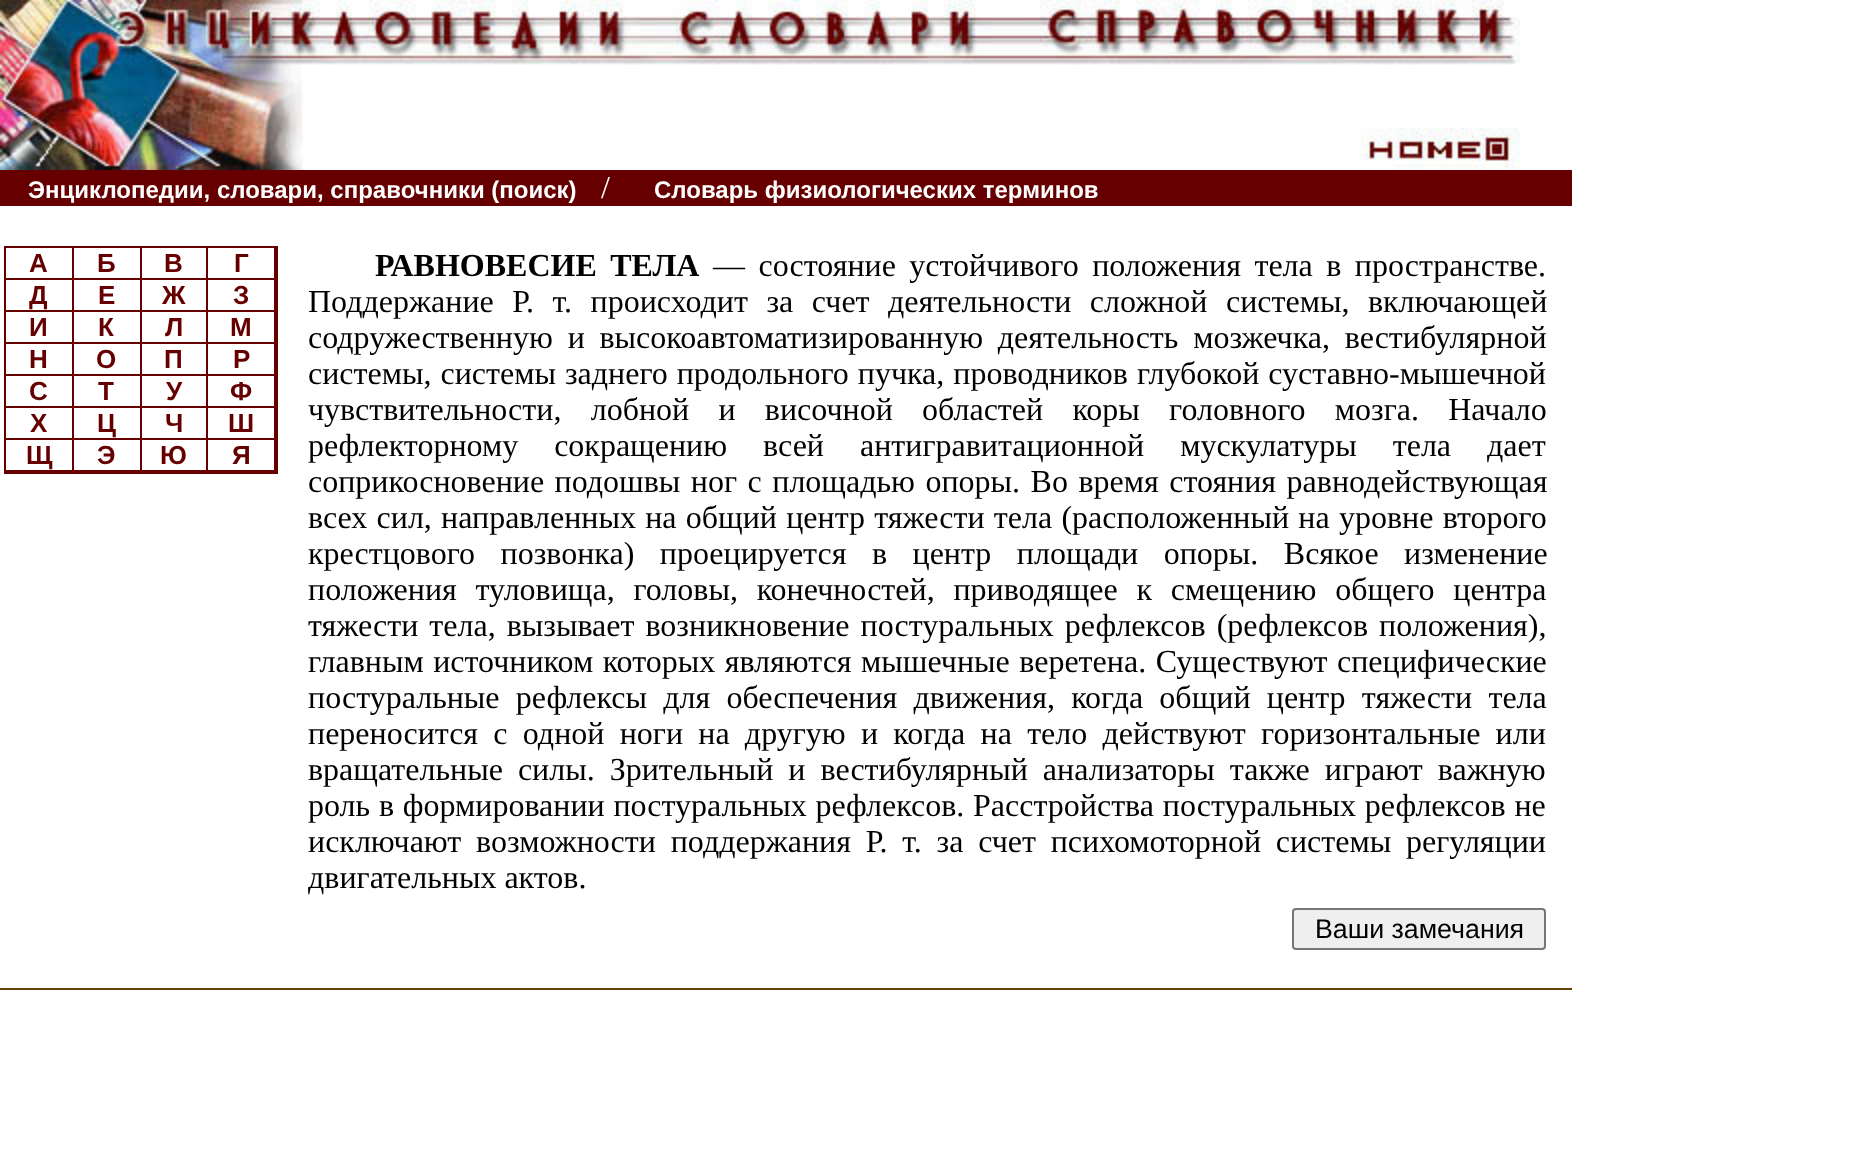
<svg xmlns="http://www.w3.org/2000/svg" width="1849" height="1174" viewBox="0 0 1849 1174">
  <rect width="100%" height="100%" fill="#ffffff"/>
  <image x="0" y="0" width="1520" height="170" href="img1.png"/>
  <rect x="0" y="170" width="1572" height="36" fill="#660000"/>
  <text x="28" y="198" font-family="Liberation Sans" font-size="24" font-weight="bold" fill="#ffffff">Энциклопедии, словари, справочники (поиск)</text>
  <text x="601" y="198" font-family="Liberation Serif" font-size="32" fill="#ffffff">/</text>
  <text x="654" y="198" font-family="Liberation Sans" font-size="24" font-weight="bold" fill="#ffffff">Словарь физиологических терминов</text>
  <rect x="4" y="246" width="274" height="228" fill="#660000"/>
  <rect x="6" y="248" width="66" height="30" fill="#ffffff"/>
  <text x="29" y="272" font-family="Liberation Sans" font-size="26" font-weight="bold" fill="#660000">А</text>
  <rect x="74" y="248" width="66" height="30" fill="#ffffff"/>
  <text x="97" y="272" font-family="Liberation Sans" font-size="26" font-weight="bold" fill="#660000">Б</text>
  <rect x="142" y="248" width="64" height="30" fill="#ffffff"/>
  <text x="164" y="272" font-family="Liberation Sans" font-size="26" font-weight="bold" fill="#660000">В</text>
  <rect x="208" y="248" width="66" height="30" fill="#ffffff"/>
  <text x="234" y="272" font-family="Liberation Sans" font-size="26" font-weight="bold" fill="#660000">Г</text>
  <rect x="6" y="280" width="66" height="30" fill="#ffffff"/>
  <text x="29" y="304" font-family="Liberation Sans" font-size="26" font-weight="bold" fill="#660000">Д</text>
  <rect x="74" y="280" width="66" height="30" fill="#ffffff"/>
  <text x="98" y="304" font-family="Liberation Sans" font-size="26" font-weight="bold" fill="#660000">Е</text>
  <rect x="142" y="280" width="64" height="30" fill="#ffffff"/>
  <text x="162" y="304" font-family="Liberation Sans" font-size="26" font-weight="bold" fill="#660000">Ж</text>
  <rect x="208" y="280" width="66" height="30" fill="#ffffff"/>
  <text x="233" y="304" font-family="Liberation Sans" font-size="26" font-weight="bold" fill="#660000">З</text>
  <rect x="6" y="312" width="66" height="30" fill="#ffffff"/>
  <text x="29" y="336" font-family="Liberation Sans" font-size="26" font-weight="bold" fill="#660000">И</text>
  <rect x="74" y="312" width="66" height="30" fill="#ffffff"/>
  <text x="98" y="336" font-family="Liberation Sans" font-size="26" font-weight="bold" fill="#660000">К</text>
  <rect x="142" y="312" width="64" height="30" fill="#ffffff"/>
  <text x="165" y="336" font-family="Liberation Sans" font-size="26" font-weight="bold" fill="#660000">Л</text>
  <rect x="208" y="312" width="66" height="30" fill="#ffffff"/>
  <text x="230" y="336" font-family="Liberation Sans" font-size="26" font-weight="bold" fill="#660000">М</text>
  <rect x="6" y="344" width="66" height="30" fill="#ffffff"/>
  <text x="29" y="368" font-family="Liberation Sans" font-size="26" font-weight="bold" fill="#660000">Н</text>
  <rect x="74" y="344" width="66" height="30" fill="#ffffff"/>
  <text x="96" y="368" font-family="Liberation Sans" font-size="26" font-weight="bold" fill="#660000">О</text>
  <rect x="142" y="344" width="64" height="30" fill="#ffffff"/>
  <text x="164" y="368" font-family="Liberation Sans" font-size="26" font-weight="bold" fill="#660000">П</text>
  <rect x="208" y="344" width="66" height="30" fill="#ffffff"/>
  <text x="233" y="368" font-family="Liberation Sans" font-size="26" font-weight="bold" fill="#660000">Р</text>
  <rect x="6" y="376" width="66" height="30" fill="#ffffff"/>
  <text x="29" y="400" font-family="Liberation Sans" font-size="26" font-weight="bold" fill="#660000">С</text>
  <rect x="74" y="376" width="66" height="30" fill="#ffffff"/>
  <text x="98" y="400" font-family="Liberation Sans" font-size="26" font-weight="bold" fill="#660000">Т</text>
  <rect x="142" y="376" width="64" height="30" fill="#ffffff"/>
  <text x="166" y="400" font-family="Liberation Sans" font-size="26" font-weight="bold" fill="#660000">У</text>
  <rect x="208" y="376" width="66" height="30" fill="#ffffff"/>
  <text x="230" y="400" font-family="Liberation Sans" font-size="26" font-weight="bold" fill="#660000">Ф</text>
  <rect x="6" y="408" width="66" height="30" fill="#ffffff"/>
  <text x="30" y="432" font-family="Liberation Sans" font-size="26" font-weight="bold" fill="#660000">Х</text>
  <rect x="74" y="408" width="66" height="30" fill="#ffffff"/>
  <text x="97" y="432" font-family="Liberation Sans" font-size="26" font-weight="bold" fill="#660000">Ц</text>
  <rect x="142" y="408" width="64" height="30" fill="#ffffff"/>
  <text x="165" y="432" font-family="Liberation Sans" font-size="26" font-weight="bold" fill="#660000">Ч</text>
  <rect x="208" y="408" width="66" height="30" fill="#ffffff"/>
  <text x="228" y="432" font-family="Liberation Sans" font-size="26" font-weight="bold" fill="#660000">Ш</text>
  <rect x="6" y="440" width="66" height="30" fill="#ffffff"/>
  <text x="26" y="464" font-family="Liberation Sans" font-size="26" font-weight="bold" fill="#660000">Щ</text>
  <rect x="74" y="440" width="66" height="30" fill="#ffffff"/>
  <text x="97" y="464" font-family="Liberation Sans" font-size="26" font-weight="bold" fill="#660000">Э</text>
  <rect x="142" y="440" width="64" height="30" fill="#ffffff"/>
  <text x="160" y="464" font-family="Liberation Sans" font-size="26" font-weight="bold" fill="#660000">Ю</text>
  <rect x="208" y="440" width="66" height="30" fill="#ffffff"/>
  <text x="232" y="464" font-family="Liberation Sans" font-size="26" font-weight="bold" fill="#660000">Я</text>
  <text x="375" y="276" word-spacing="5.5" font-family="Liberation Serif" font-size="32" font-weight="bold" fill="#000000">РАВНОВЕСИЕ ТЕЛА</text>
  <text x="713" y="276" word-spacing="5.5" font-family="Liberation Serif" font-size="32" fill="#000000">— состояние устойчивого положения тела в пространстве.</text>
  <text x="308" y="312" word-spacing="10.5" font-family="Liberation Serif" font-size="32" fill="#000000">Поддержание Р. т. происходит за счет деятельности сложной системы, включающей</text>
  <text x="308" y="348" word-spacing="6.75" font-family="Liberation Serif" font-size="32" fill="#000000">содружественную и высокоавтоматизированную деятельность мозжечка, вестибулярной</text>
  <text x="308" y="384" word-spacing="1" font-family="Liberation Serif" font-size="32" fill="#000000">системы, системы заднего продольного пучка, проводников глубокой суставно-мышечной</text>
  <text x="308" y="420" word-spacing="21.25" font-family="Liberation Serif" font-size="32" fill="#000000">чувствительности, лобной и височной областей коры головного мозга. Начало</text>
  <text x="308" y="456" word-spacing="28" font-family="Liberation Serif" font-size="32" fill="#000000">рефлекторному сокращению всей антигравитационной мускулатуры тела дает</text>
  <text x="308" y="492" word-spacing="2.5" font-family="Liberation Serif" font-size="32" fill="#000000">соприкосновение подошвы ног с площадью опоры. Во время стояния равнодействующая</text>
  <text x="308" y="528" word-spacing="1.25" font-family="Liberation Serif" font-size="32" fill="#000000">всех сил, направленных на общий центр тяжести тела (расположенный на уровне второго</text>
  <text x="308" y="564" word-spacing="17.5" font-family="Liberation Serif" font-size="32" fill="#000000">крестцового позвонка) проецируется в центр площади опоры. Всякое изменение</text>
  <text x="308" y="600" word-spacing="10.75" font-family="Liberation Serif" font-size="32" fill="#000000">положения туловища, головы, конечностей, приводящее к смещению общего центра</text>
  <text x="308" y="636" word-spacing="3" font-family="Liberation Serif" font-size="32" fill="#000000">тяжести тела, вызывает возникновение постуральных рефлексов (рефлексов положения),</text>
  <text x="308" y="672" word-spacing="1.5" font-family="Liberation Serif" font-size="32" fill="#000000">главным источником которых являются мышечные веретена. Существуют специфические</text>
  <text x="308" y="708" word-spacing="8.25" font-family="Liberation Serif" font-size="32" fill="#000000">постуральные рефлексы для обеспечения движения, когда общий центр тяжести тела</text>
  <text x="308" y="744" word-spacing="7.25" font-family="Liberation Serif" font-size="32" fill="#000000">переносится с одной ноги на другую и когда на тело действуют горизонтальные или</text>
  <text x="308" y="780" word-spacing="7" font-family="Liberation Serif" font-size="32" fill="#000000">вращательные силы. Зрительный и вестибулярный анализаторы также играют важную</text>
  <text x="308" y="816" word-spacing="0.75" font-family="Liberation Serif" font-size="32" fill="#000000">роль в формировании постуральных рефлексов. Расстройства постуральных рефлексов не</text>
  <text x="308" y="852" word-spacing="6.75" font-family="Liberation Serif" font-size="32" fill="#000000">исключают возможности поддержания Р. т. за счет психомоторной системы регуляции</text>
  <text x="308" y="888" font-family="Liberation Serif" font-size="32" fill="#000000">двигательных актов.</text>
  <rect x="1293" y="909" width="252" height="40" rx="3" fill="#efefef" stroke="#767676" stroke-width="2"/>
  <text x="1315" y="938" font-family="Liberation Sans" font-size="26.75" fill="#000000">Ваши замечания</text>
  <rect x="0" y="988" width="1572" height="2" fill="#654205"/>
</svg>
